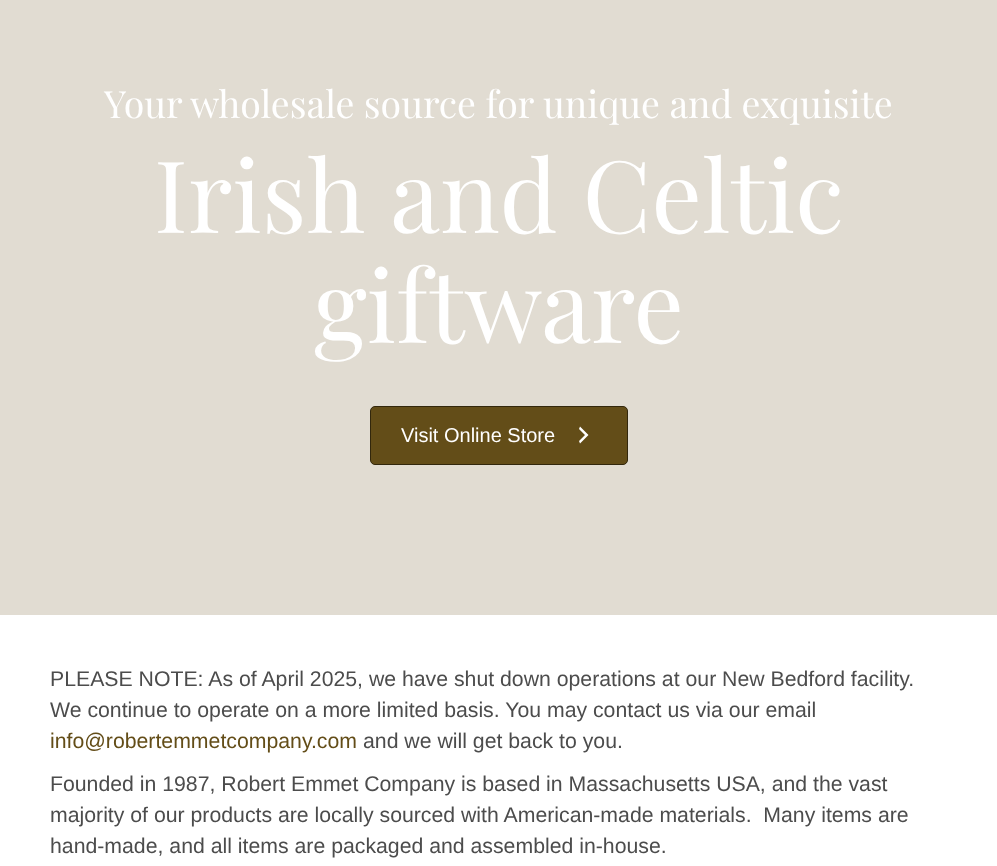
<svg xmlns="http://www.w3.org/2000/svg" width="997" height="866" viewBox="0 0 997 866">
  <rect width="100%" height="100%" fill="#ffffff"/>
  <rect x="0" y="0" width="997" height="615" fill="#e1dcd2"/>
  <text x="104" y="118" font-family="Playfair Display" font-size="37.5" fill="#ffffff">Your wholesale source for unique and exquisite</text>
  <text x="154" y="233" font-family="Playfair Display" font-size="100" fill="#ffffff">Irish and Celtic</text>
  <text x="314" y="343" font-family="Playfair Display" font-size="100" fill="#ffffff">giftware</text>
  <rect x="370.5" y="406.5" width="257" height="58" rx="4.5" fill="#634d18" stroke="#32270c"/>
  <text x="401" y="442" font-family="Liberation Sans" font-size="20" fill="#ffffff">Visit Online Store</text>
  <path d="M579 441L585 435L579 429L580 426.5L588.5 435L580 443.5Z" fill="#ffffff"/>
  <text x="50" y="686" font-family="Liberation Sans" font-size="21.25" fill="#4c4c4c">PLEASE NOTE: As of April 2025, we have shut down operations at our New Bedford facility.</text>
  <text x="50" y="717" font-family="Liberation Sans" font-size="21.25" fill="#4c4c4c">We continue to operate on a more limited basis. You may contact us via our email</text>
  <text x="50" y="748" font-family="Liberation Sans" font-size="21.25" fill="#634d18">info@robertemmetcompany.com</text>
  <text x="363" y="748" font-family="Liberation Sans" font-size="21.25" fill="#4c4c4c">and we will get back to you.</text>
  <text x="50" y="791" font-family="Liberation Sans" font-size="21.25" fill="#4c4c4c">Founded in 1987, Robert Emmet Company is based in Massachusetts USA, and the vast</text>
  <text x="50" y="822" font-family="Liberation Sans" font-size="21.25" fill="#4c4c4c" xml:space="preserve">majority of our products are locally sourced with American-made materials.  Many items are</text>
  <text x="50" y="853" font-family="Liberation Sans" font-size="21.25" fill="#4c4c4c">hand-made, and all items are packaged and assembled in-house.</text>
</svg>
